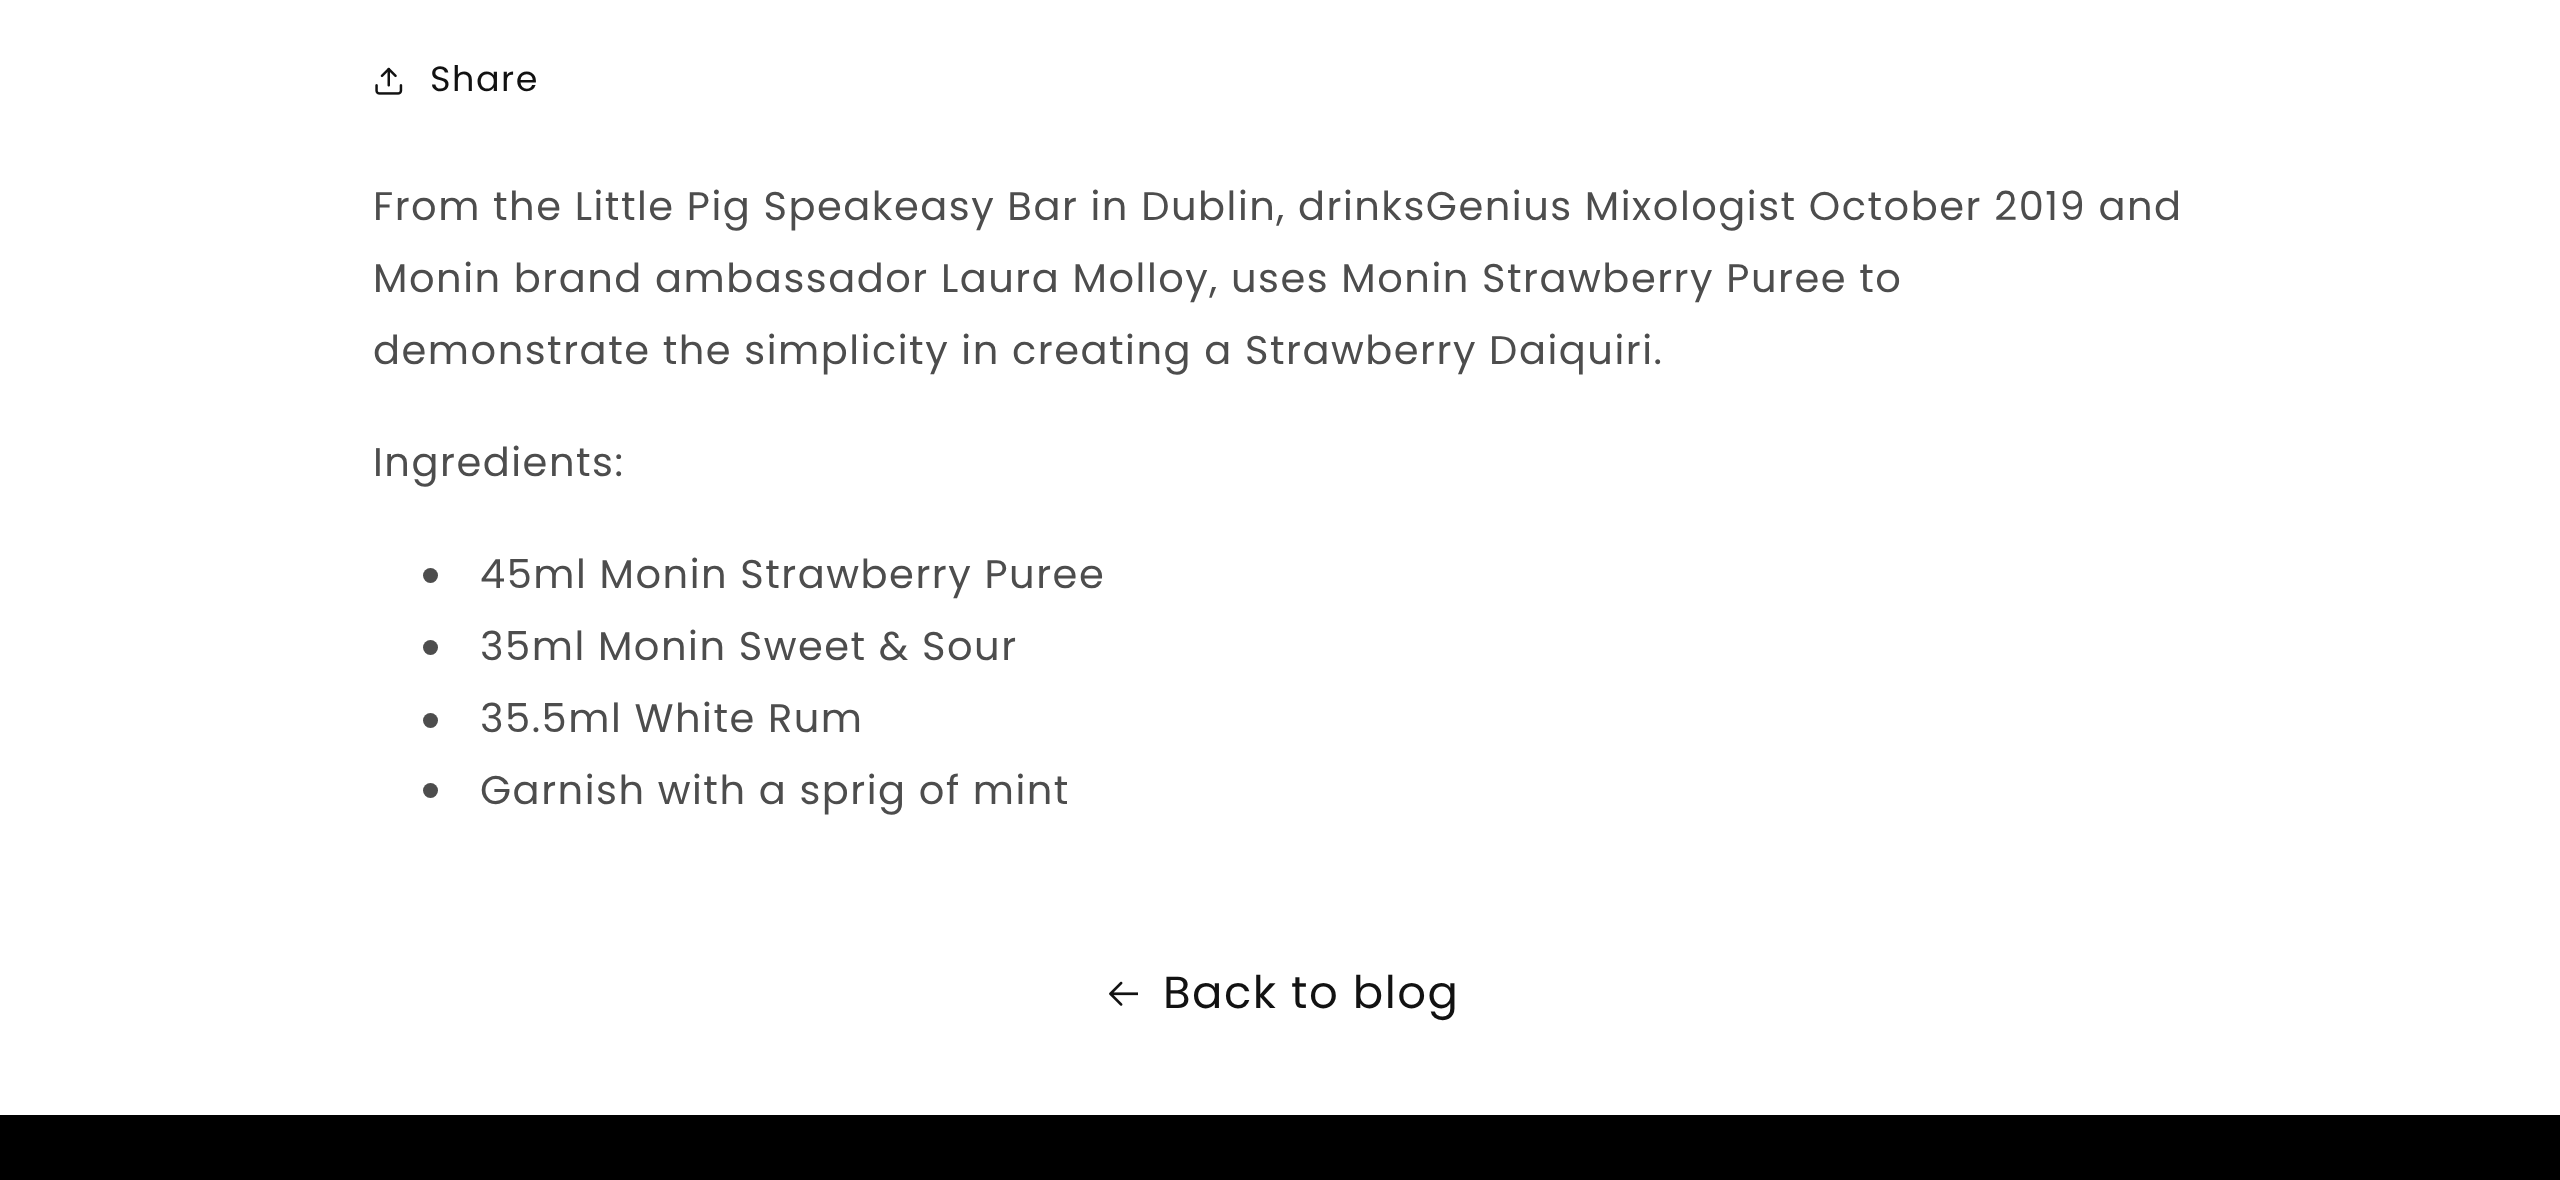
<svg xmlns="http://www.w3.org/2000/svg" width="2560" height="1180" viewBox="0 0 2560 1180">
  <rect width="100%" height="100%" fill="#ffffff"/>
  <image x="375" y="67" width="28" height="28" href="img1.png"/>
  <text x="430" y="91" font-family="Poppins" font-size="35" letter-spacing="1.5" fill="#121212">Share</text>
  <text x="373" y="220" font-family="Poppins" font-size="40" letter-spacing="1.5" fill="#4d4d4d">From the Little Pig Speakeasy Bar in Dublin, drinksGenius Mixologist October 2019 and</text>
  <text x="373" y="292" font-family="Poppins" font-size="40" letter-spacing="1.5" fill="#4d4d4d">Monin brand ambassador Laura Molloy, uses Monin Strawberry Puree to</text>
  <text x="373" y="364" font-family="Poppins" font-size="40" letter-spacing="1.5" fill="#4d4d4d">demonstrate the simplicity in creating a Strawberry Daiquiri.</text>
  <text x="373" y="476" font-family="Poppins" font-size="40" letter-spacing="1.5" fill="#4d4d4d">Ingredients:</text>
  <circle cx="430.5" cy="575.5" r="7.5" fill="#4d4d4d"/>
  <text x="480" y="588" font-family="Poppins" font-size="40" letter-spacing="1.5" fill="#4d4d4d">45ml Monin Strawberry Puree</text>
  <circle cx="430.5" cy="647.5" r="7.5" fill="#4d4d4d"/>
  <text x="480" y="660" font-family="Poppins" font-size="40" letter-spacing="1.5" fill="#4d4d4d">35ml Monin Sweet &amp; Sour</text>
  <circle cx="430.5" cy="720.5" r="7.5" fill="#4d4d4d"/>
  <text x="480" y="732" font-family="Poppins" font-size="40" letter-spacing="1.5" fill="#4d4d4d">35.5ml White Rum</text>
  <circle cx="430.5" cy="790.5" r="7.5" fill="#4d4d4d"/>
  <text x="480" y="804" font-family="Poppins" font-size="40" letter-spacing="1.5" fill="#4d4d4d">Garnish with a sprig of mint</text>
  <image x="1109" y="981" width="29" height="25" href="img2.png"/>
  <text x="1163" y="1008" font-family="Poppins" font-size="45" letter-spacing="1.5" fill="#121212">Back to blog</text>
  <rect x="0" y="1115" width="2560" height="65" fill="#000000"/>
</svg>
